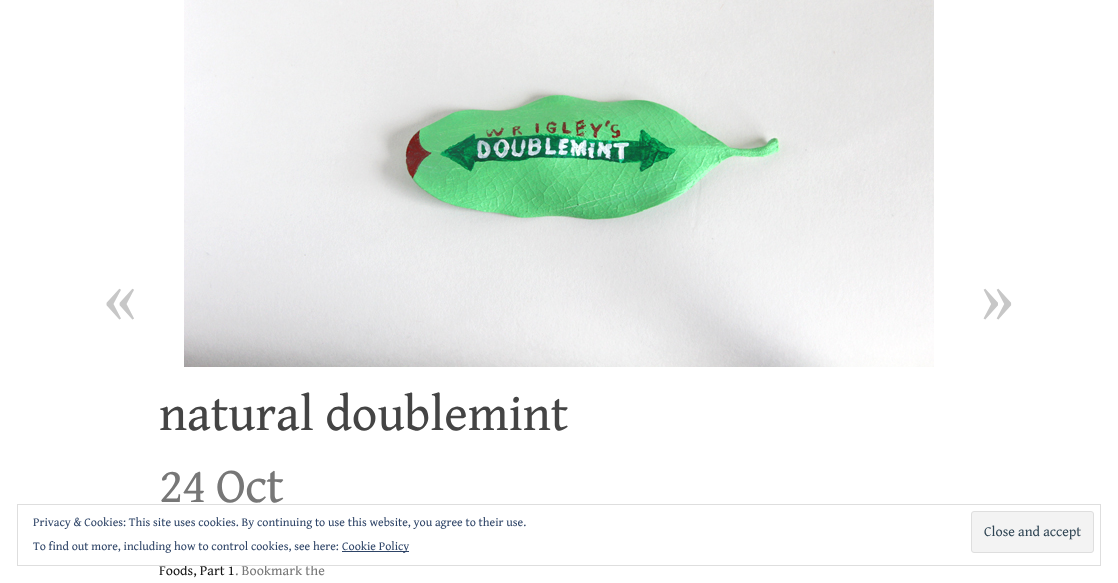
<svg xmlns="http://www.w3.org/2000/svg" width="1118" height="583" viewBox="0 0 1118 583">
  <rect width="100%" height="100%" fill="#ffffff"/>
  <text x="104" y="320" font-family="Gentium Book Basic" font-size="70" fill="#c7c7c7">«</text>
  <text x="979" y="320" font-family="Gentium Book Basic" font-size="70" fill="#c7c7c7">»</text>
  <image x="184" y="0" width="750" height="367" href="img1.png"/>
  <text x="159" y="430" font-family="Gentium Book Basic" font-size="50" fill="#444444">natural doublemint</text>
  <text x="159" y="502" font-family="Gentium Book Basic" font-size="50" letter-spacing="-1" fill="#777777">24 Oct</text>
  <text x="159" y="575" font-family="Gentium Book Basic" font-size="14" fill="#111111">Foods, Part 1</text>
  <text x="235" y="575" font-family="Gentium Book Basic" font-size="14" fill="#777777">. Bookmark the</text>
  <rect x="184" y="564" width="129" height="1" fill="#ffffff"/>
  <rect x="17.5" y="504.5" width="1083" height="61" fill="none" stroke="#dedede"/>
  <text x="33" y="526" font-family="Gentium Book Basic" font-size="12" fill="#2e4467">Privacy &amp; Cookies: This site uses cookies. By continuing to use this website, you agree to their use.</text>
  <rect x="971.5" y="511.5" width="122" height="41" rx="2.5" fill="#f3f3f3" stroke="#dedede"/>
  <text x="984" y="536" font-family="Gentium Book Basic" font-size="14" fill="#2e4453">Close and accept</text>
  <text x="33" y="550" font-family="Gentium Book Basic" font-size="12" fill="#2e4467">To find out more, including how to control cookies, see here:</text>
  <rect x="342" y="551" width="67" height="1" fill="#2e4467"/>
  <text x="342" y="550" font-family="Gentium Book Basic" font-size="12" fill="#2e4467">Cookie Policy</text>
</svg>
